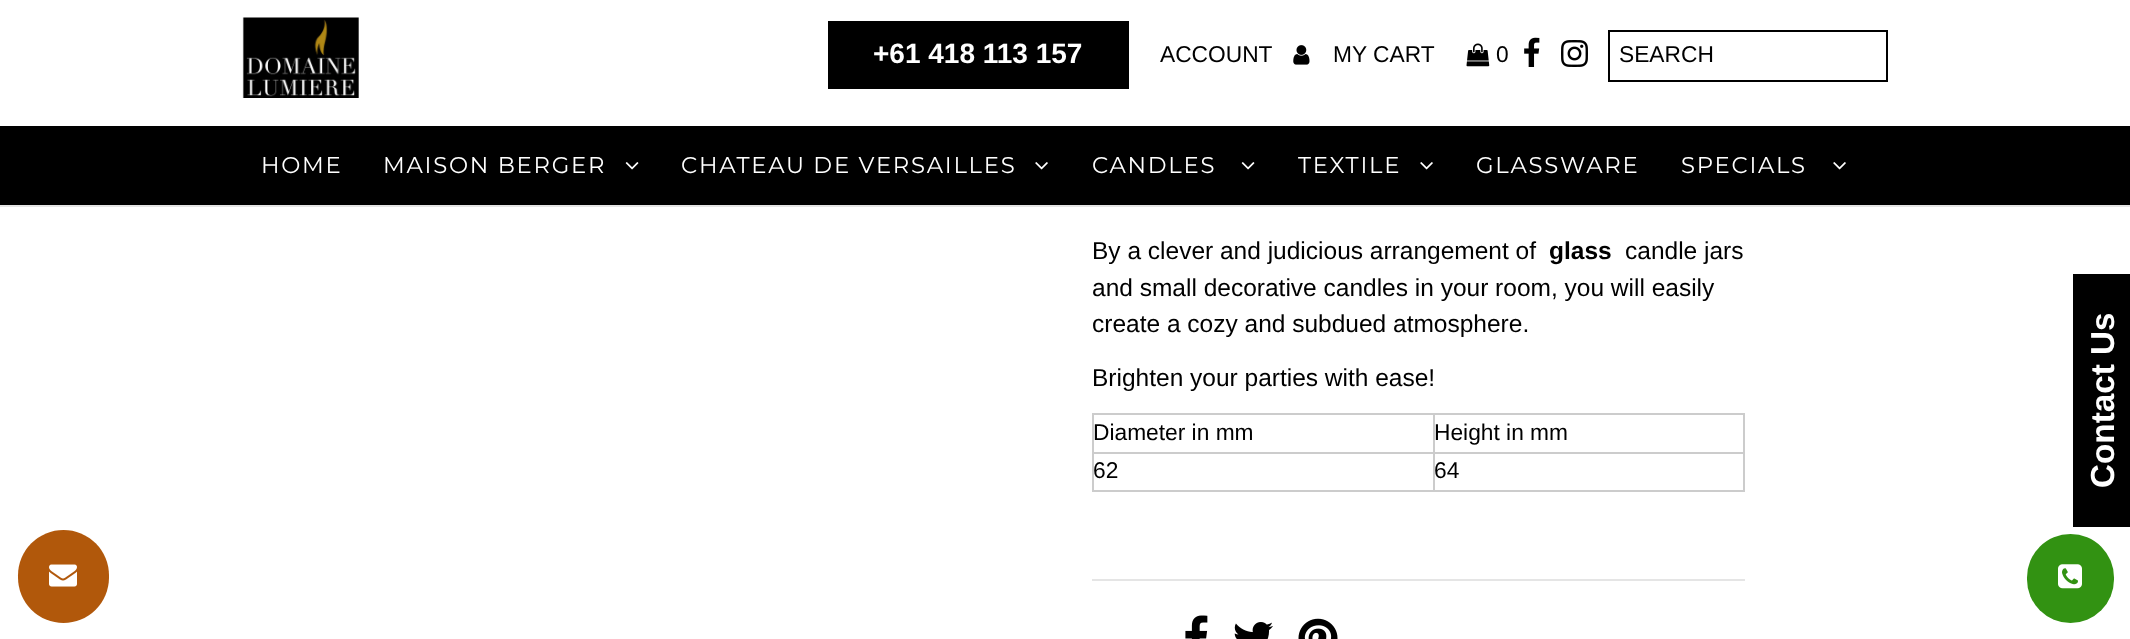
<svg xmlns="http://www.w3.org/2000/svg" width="2130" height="639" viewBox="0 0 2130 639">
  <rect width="100%" height="100%" fill="#ffffff"/>
  <image x="242" y="17" width="117" height="81" href="img1.png"/>
  <rect x="828" y="21" width="301" height="68" fill="#000000"/>
  <text x="873" y="63" font-family="Liberation Sans" font-size="28" font-weight="bold" fill="#ffffff">+61 418 113 157</text>
  <text x="1160" y="62" font-family="Liberation Sans" font-size="22.75" fill="#000000">ACCOUNT</text>
  <image x="1293" y="45" width="17" height="20" href="img2.png"/>
  <text x="1333" y="62" font-family="Liberation Sans" font-size="22.75" fill="#000000">MY CART</text>
  <image x="1466" y="43" width="24" height="24" href="img3.png"/>
  <text x="1496" y="62" font-family="Liberation Sans" font-size="22.75" fill="#000000">0</text>
  <image x="1524" y="37" width="16" height="30" href="img4.png"/>
  <image x="1561" y="40" width="27" height="27" href="img5.png"/>
  <rect x="1609" y="31" width="278" height="50" fill="none" stroke="#000000" stroke-width="2"/>
  <text x="1619" y="62" font-family="Liberation Sans" font-size="22.75" fill="#000000">SEARCH</text>
  <rect x="0" y="126" width="2130" height="79" fill="#000000"/>
  <rect x="0" y="205" width="2130" height="2" fill="#e5e5e5"/>
  <text x="261" y="173" font-family="Montserrat" font-size="22.75" letter-spacing="1.75" fill="#ffffff">HOME</text>
  <text x="383" y="173" font-family="Montserrat" font-size="22.75" letter-spacing="1.75" fill="#ffffff">MAISON BERGER</text>
  <image x="625" y="162" width="14" height="8" href="img6.png"/>
  <text x="681" y="173" font-family="Montserrat" font-size="22.75" letter-spacing="1.75" fill="#ffffff">CHATEAU DE VERSAILLES</text>
  <image x="1035" y="162" width="13" height="8" href="img7.png"/>
  <text x="1092" y="173" font-family="Montserrat" font-size="22.75" letter-spacing="1.75" fill="#ffffff">CANDLES</text>
  <image x="1241" y="162" width="14" height="8" href="img6.png"/>
  <text x="1298" y="173" font-family="Montserrat" font-size="22.75" letter-spacing="1.75" fill="#ffffff">TEXTILE</text>
  <image x="1420" y="162" width="13" height="8" href="img7.png"/>
  <text x="1476" y="173" font-family="Montserrat" font-size="22.75" letter-spacing="1.75" fill="#ffffff">GLASSWARE</text>
  <text x="1681" y="173" font-family="Montserrat" font-size="22.75" letter-spacing="1.75" fill="#ffffff">SPECIALS</text>
  <image x="1833" y="162" width="13" height="8" href="img7.png"/>
  <text x="1092" y="259" font-family="Liberation Sans" font-size="24.5" fill="#000000">By a clever and judicious arrangement of</text>
  <text x="1549" y="259" font-family="Liberation Sans" font-size="24.5" font-weight="bold" fill="#000000">glass</text>
  <text x="1625" y="259" font-family="Liberation Sans" font-size="24.5" fill="#000000">candle jars</text>
  <text x="1092" y="296" font-family="Liberation Sans" font-size="24.5" fill="#000000">and small decorative candles in your room, you will easily</text>
  <text x="1092" y="332" font-family="Liberation Sans" font-size="24.5" fill="#000000">create a cozy and subdued atmosphere.</text>
  <text x="1092" y="386" font-family="Liberation Sans" font-size="24.5" fill="#000000">Brighten your parties with ease!</text>
  <rect x="1433" y="413" width="312" height="2" fill="#cccccc"/>
  <rect x="1433" y="452" width="312" height="2" fill="#cccccc"/>
  <rect x="1743" y="452" width="2" height="40" fill="#cccccc"/>
  <rect x="1433" y="490" width="312" height="2" fill="#cccccc"/>
  <rect x="1433" y="452" width="2" height="40" fill="#cccccc"/>
  <rect x="1092" y="452" width="343" height="2" fill="#cccccc"/>
  <rect x="1433" y="413" width="2" height="40" fill="#cccccc"/>
  <rect x="1092" y="413" width="343" height="2" fill="#cccccc"/>
  <rect x="1092" y="490" width="343" height="2" fill="#cccccc"/>
  <rect x="1092" y="452" width="2" height="40" fill="#cccccc"/>
  <rect x="1092" y="413" width="2" height="40" fill="#cccccc"/>
  <text x="1093" y="440" font-family="Liberation Sans" font-size="22.75" fill="#000000">Diameter in mm</text>
  <rect x="1743" y="413" width="2" height="40" fill="#cccccc"/>
  <text x="1434" y="440" font-family="Liberation Sans" font-size="22.75" fill="#000000">Height in mm</text>
  <text x="1093" y="478" font-family="Liberation Sans" font-size="22.75" fill="#000000">62</text>
  <text x="1434" y="478" font-family="Liberation Sans" font-size="22.75" fill="#000000">64</text>
  <rect x="1092" y="579" width="653" height="2" fill="#e5e5e5"/>
  <image x="1185" y="615" width="23" height="24" href="img8.png"/>
  <image x="1234" y="622" width="39" height="17" href="img9.png"/>
  <image x="1298" y="618" width="40" height="21" href="img10.png"/>
  <rect x="2073" y="274" width="57" height="253" fill="#000000"/>
  <text x="2114" y="488" transform="rotate(-90 2114 488)" font-family="Liberation Sans" font-size="33.25" font-weight="bold" fill="#ffffff">Contact Us</text>
  <rect x="18" y="530" width="91" height="93" rx="45.5" fill="#b1580b"/>
  <image x="49" y="564" width="28" height="23" href="img11.png"/>
  <rect x="2027" y="534" width="87" height="89" rx="43.5" fill="#329212"/>
  <image x="2058" y="564" width="24" height="25" href="img12.png"/>
</svg>
